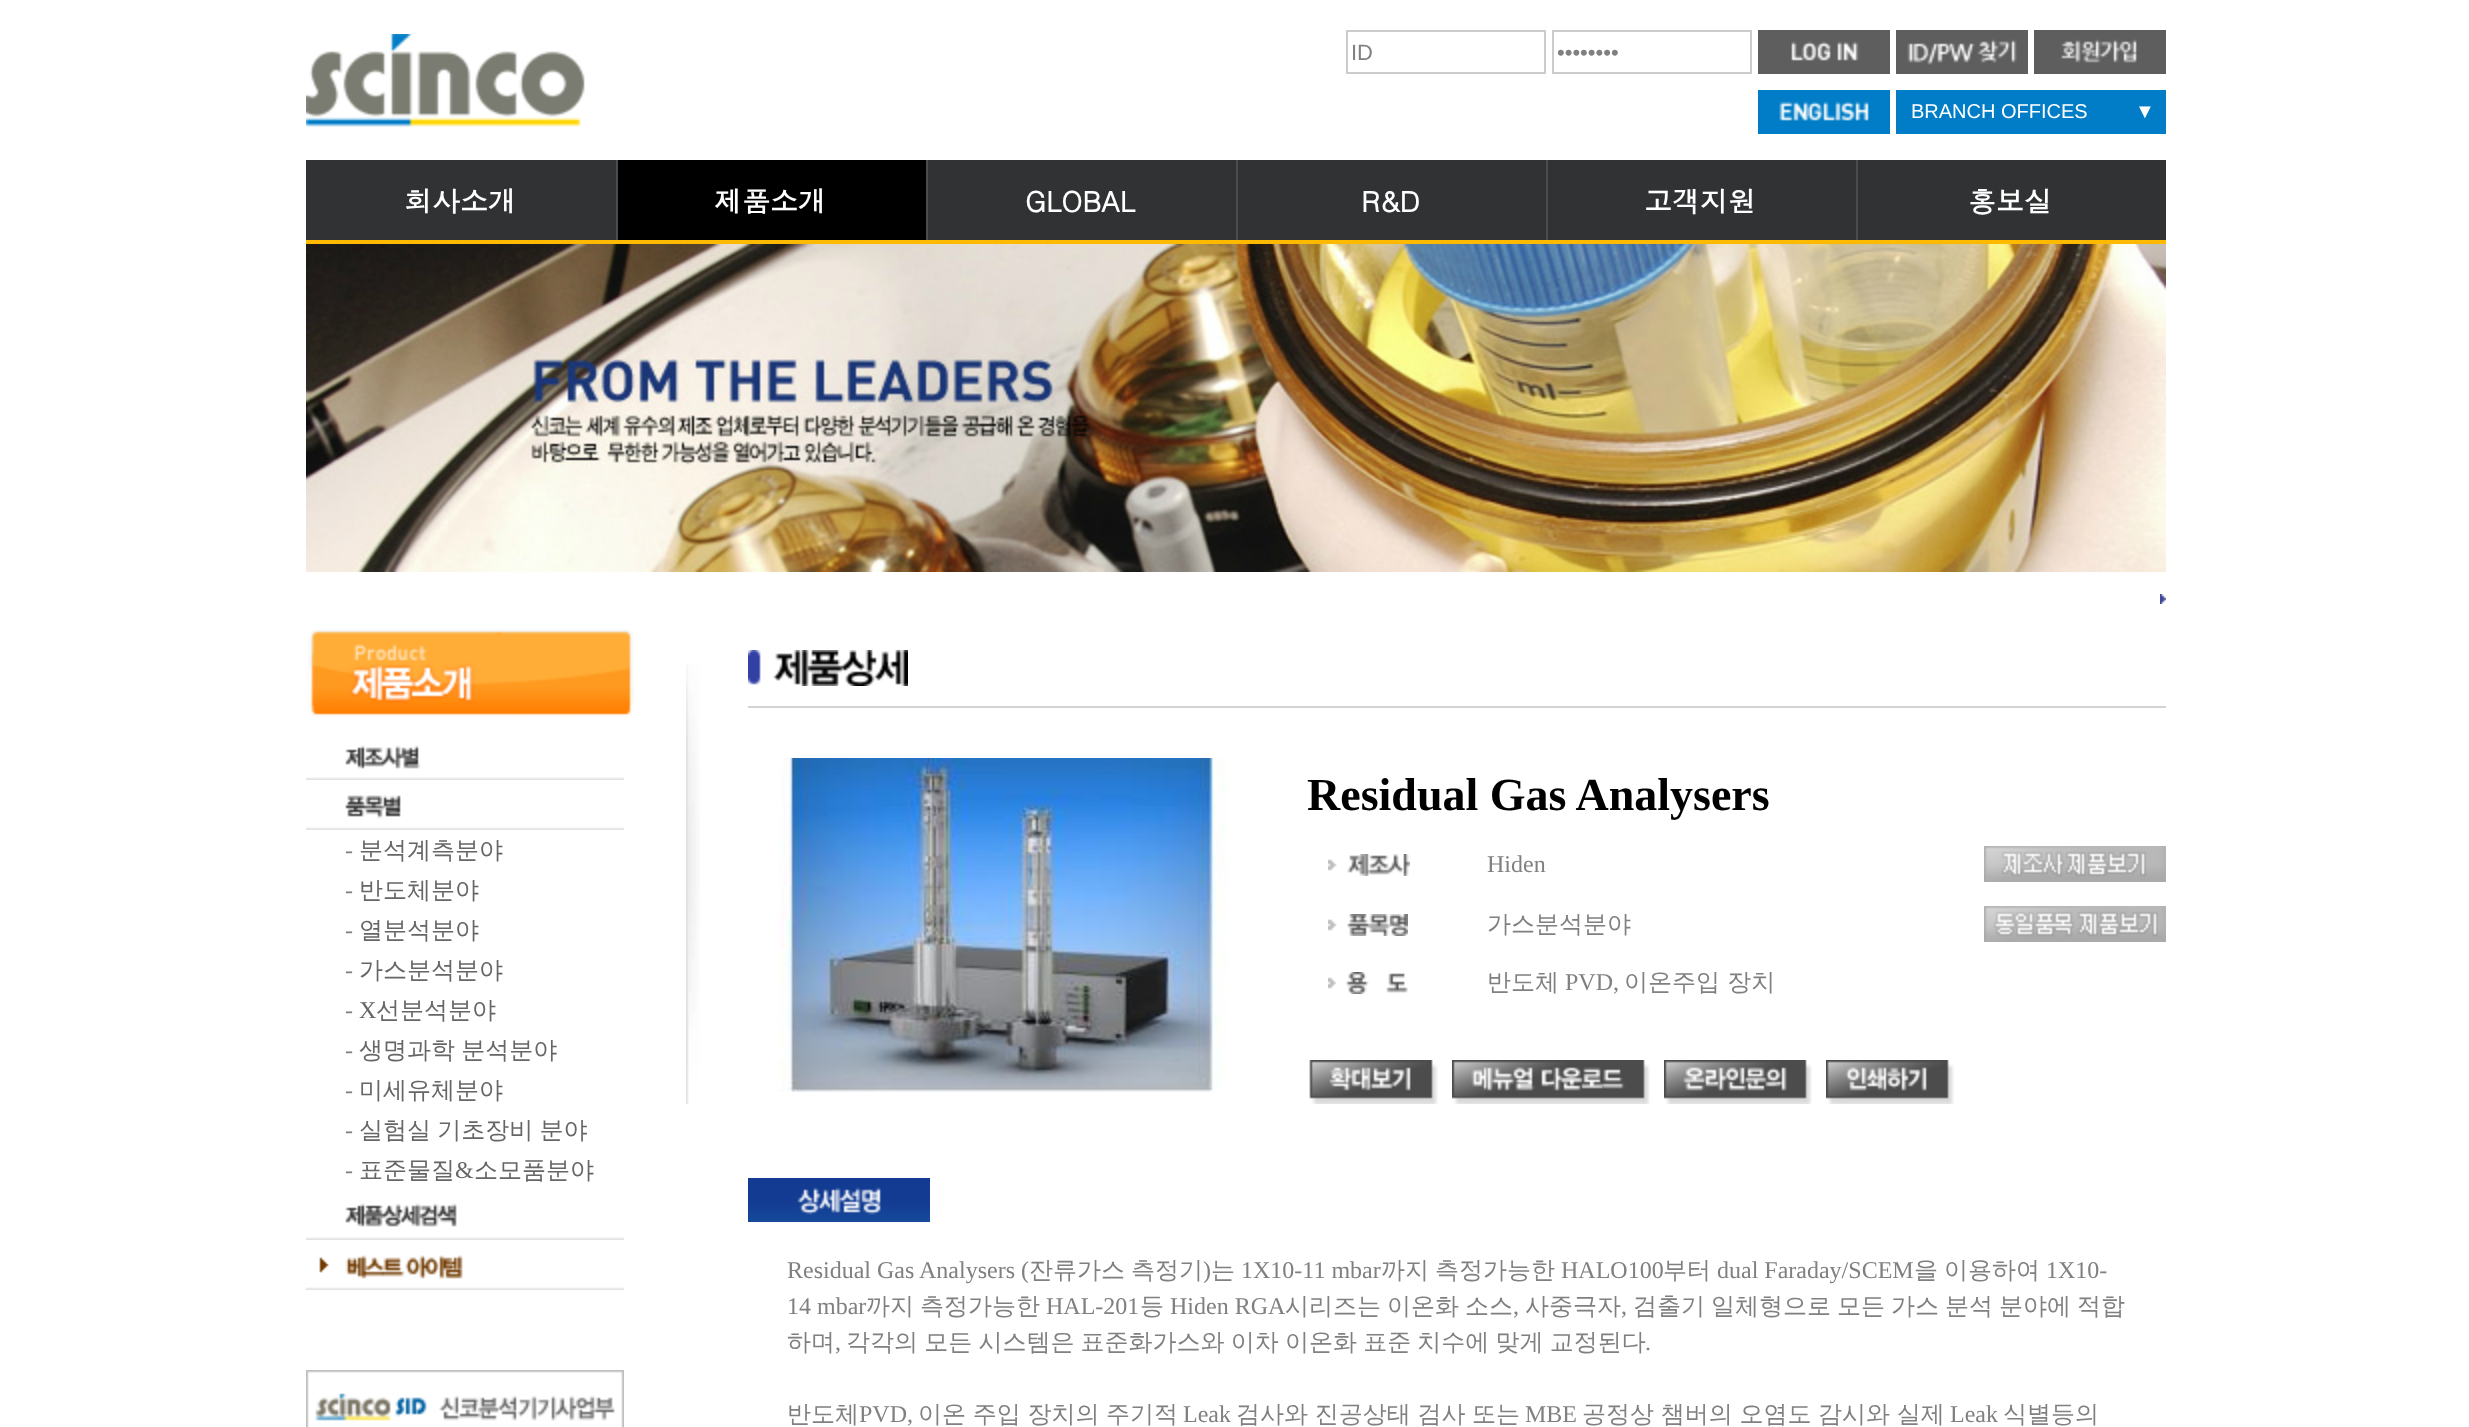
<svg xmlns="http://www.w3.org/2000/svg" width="2469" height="1427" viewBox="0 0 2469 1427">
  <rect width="100%" height="100%" fill="#ffffff"/>
  <image x="306" y="34" width="279" height="93" href="img1.png"/>
  <rect x="1347" y="31" width="198" height="42" fill="none" stroke="#cccccc" stroke-width="2"/>
  <text x="1351" y="60" font-family="Liberation Sans" font-size="22" fill="#808080">ID</text>
  <rect x="1553" y="31" width="198" height="42" fill="none" stroke="#cccccc" stroke-width="2"/>
  <text x="1557" y="60" font-family="Liberation Sans" font-size="22" fill="#808080">••••••••</text>
  <image x="1758" y="30" width="132" height="44" href="img2.png"/>
  <image x="1896" y="30" width="132" height="44" href="img3.png"/>
  <image x="2034" y="30" width="132" height="44" href="img4.png"/>
  <image x="1758" y="90" width="132" height="44" href="img5.png"/>
  <rect x="1896" y="90" width="270" height="44" fill="#007dc6"/>
  <text x="1911" y="118" font-family="Liberation Sans" font-size="20" fill="#ffffff">BRANCH OFFICES</text>
  <text x="2135" y="118" font-family="Liberation Sans" font-size="20" fill="#ffffff">▼</text>
  <rect x="306" y="160" width="310" height="80" fill="#313233"/>
  <text x="404" y="212" font-family="Dotum" font-size="28" font-weight="bold" fill="#ffffff">회사소개</text>
  <rect x="618" y="160" width="308" height="80" fill="#000000"/>
  <rect x="616" y="160" width="2" height="80" fill="#4b4c4e"/>
  <text x="714" y="212" font-family="Dotum" font-size="28" font-weight="bold" fill="#ffffff">제품소개</text>
  <rect x="928" y="160" width="308" height="80" fill="#313233"/>
  <rect x="926" y="160" width="2" height="80" fill="#4b4c4e"/>
  <text x="1025" y="212" font-family="Dotum" font-size="28" font-weight="bold" fill="#ffffff">GLOBAL</text>
  <rect x="1238" y="160" width="308" height="80" fill="#313233"/>
  <rect x="1236" y="160" width="2" height="80" fill="#4b4c4e"/>
  <text x="1361" y="212" font-family="Dotum" font-size="28" font-weight="bold" fill="#ffffff">R&amp;D</text>
  <rect x="1548" y="160" width="308" height="80" fill="#313233"/>
  <rect x="1546" y="160" width="2" height="80" fill="#4b4c4e"/>
  <text x="1644" y="212" font-family="Dotum" font-size="28" font-weight="bold" fill="#ffffff">고객지원</text>
  <rect x="1858" y="160" width="308" height="80" fill="#313233"/>
  <rect x="1856" y="160" width="2" height="80" fill="#4b4c4e"/>
  <text x="1968" y="212" font-family="Dotum" font-size="28" font-weight="bold" fill="#ffffff">홍보실</text>
  <rect x="306" y="240" width="1860" height="4" fill="#feba00"/>
  <image x="306" y="244" width="1860" height="328" href="img6.png"/>
  <image x="2160" y="594" width="6" height="10" href="img7.png"/>
  <image x="308" y="629" width="326" height="88" href="img8.png"/>
  <image x="306" y="745" width="318" height="35" href="img9.png"/>
  <image x="306" y="795" width="318" height="35" href="img10.png"/>
  <text x="345" y="858" font-family="Liberation Serif" font-size="24" fill="#808080">-</text>
  <text x="359" y="858" font-family="WenQuanYi Zen Hei" font-size="24" font-weight="500" fill="#666666">분석계측분야</text>
  <text x="345" y="898" font-family="Liberation Serif" font-size="24" fill="#808080">-</text>
  <text x="359" y="898" font-family="WenQuanYi Zen Hei" font-size="24" font-weight="500" fill="#666666">반도체분야</text>
  <text x="345" y="938" font-family="Liberation Serif" font-size="24" fill="#808080">-</text>
  <text x="359" y="938" font-family="WenQuanYi Zen Hei" font-size="24" font-weight="500" fill="#666666">열분석분야</text>
  <text x="345" y="978" font-family="Liberation Serif" font-size="24" fill="#808080">-</text>
  <text x="359" y="978" font-family="WenQuanYi Zen Hei" font-size="24" font-weight="500" fill="#666666">가스분석분야</text>
  <text x="345" y="1018" font-family="Liberation Serif" font-size="24" fill="#808080">-</text>
  <text x="359" y="1018" font-family="Liberation Serif" font-size="24" fill="#666666">X</text>
  <text x="376" y="1018" font-family="WenQuanYi Zen Hei" font-size="24" font-weight="500" fill="#666666">선분석분야</text>
  <text x="345" y="1058" font-family="Liberation Serif" font-size="24" fill="#808080">-</text>
  <text x="359" y="1058" word-spacing="-1" font-family="WenQuanYi Zen Hei" font-size="24" font-weight="500" fill="#666666">생명과학 분석분야</text>
  <text x="345" y="1098" font-family="Liberation Serif" font-size="24" fill="#808080">-</text>
  <text x="359" y="1098" font-family="WenQuanYi Zen Hei" font-size="24" font-weight="500" fill="#666666">미세유체분야</text>
  <text x="345" y="1138" font-family="Liberation Serif" font-size="24" fill="#808080">-</text>
  <text x="359" y="1138" word-spacing="-1" font-family="WenQuanYi Zen Hei" font-size="24" font-weight="500" fill="#666666">실험실 기초장비 분야</text>
  <text x="345" y="1178" font-family="Liberation Serif" font-size="24" fill="#808080">-</text>
  <text x="359" y="1178" font-family="WenQuanYi Zen Hei" font-size="24" font-weight="500" fill="#666666">표준물질</text>
  <text x="455" y="1178" font-family="Liberation Serif" font-size="24" fill="#666666">&amp;</text>
  <text x="474" y="1178" font-family="WenQuanYi Zen Hei" font-size="24" font-weight="500" fill="#666666">소모품분야</text>
  <image x="306" y="1203" width="318" height="37" href="img11.png"/>
  <image x="306" y="1255" width="318" height="35" href="img12.png"/>
  <image x="306" y="1370" width="318" height="57" href="img13.png"/>
  <image x="686" y="663" width="14" height="441" href="img14.png"/>
  <image x="748" y="650" width="160" height="36" href="img15.png"/>
  <rect x="748" y="706" width="1418" height="2" fill="#d3d3d3"/>
  <image x="779" y="758" width="449" height="334" href="img16.png"/>
  <text x="1307" y="810" font-family="Liberation Serif" font-size="46" font-weight="bold" fill="#000000">Residual Gas Analysers</text>
  <image x="1328" y="854" width="82" height="22" href="img17.png"/>
  <text x="1487" y="872" font-family="Liberation Serif" font-size="24" fill="#808080">Hiden</text>
  <image x="1984" y="846" width="182" height="36" href="img18.png"/>
  <image x="1328" y="914" width="80" height="22" href="img19.png"/>
  <text x="1487" y="932" font-family="WenQuanYi Zen Hei" font-size="24" font-weight="500" fill="#808080">가스분석분야</text>
  <image x="1984" y="906" width="182" height="36" href="img20.png"/>
  <image x="1328" y="972" width="80" height="22" href="img21.png"/>
  <text x="1487" y="990" font-family="WenQuanYi Zen Hei" font-size="24" font-weight="500" fill="#808080">반도체</text>
  <text x="1565" y="990" font-family="Liberation Serif" font-size="24" fill="#808080">PVD,</text>
  <text x="1624" y="990" font-family="WenQuanYi Zen Hei" font-size="24" font-weight="500" fill="#808080">이온주입 장치</text>
  <image x="1309" y="1060" width="129" height="44" href="img22.png"/>
  <image x="1452" y="1060" width="198" height="44" href="img23.png"/>
  <image x="1664" y="1060" width="148" height="44" href="img24.png"/>
  <image x="1826" y="1060" width="128" height="44" href="img25.png"/>
  <image x="748" y="1178" width="182" height="44" href="img26.png"/>
  <text x="787" y="1278" font-family="Liberation Serif" font-size="24" fill="#808080">Residual Gas Analysers (</text>
  <text x="1029" y="1278" font-family="WenQuanYi Zen Hei" font-size="24" font-weight="500" fill="#808080">잔류가스</text>
  <text x="1131" y="1278" font-family="WenQuanYi Zen Hei" font-size="24" font-weight="500" fill="#808080">측정기</text>
  <text x="1203" y="1278" font-family="Liberation Serif" font-size="24" fill="#808080">)</text>
  <text x="1211" y="1278" font-family="WenQuanYi Zen Hei" font-size="24" font-weight="500" fill="#808080">는</text>
  <text x="1241" y="1278" font-family="Liberation Serif" font-size="24" fill="#808080">1X10-11 mbar</text>
  <text x="1381" y="1278" font-family="WenQuanYi Zen Hei" font-size="24" font-weight="500" fill="#808080">까지</text>
  <text x="1435" y="1278" font-family="WenQuanYi Zen Hei" font-size="24" font-weight="500" fill="#808080">측정가능한</text>
  <text x="1561" y="1278" font-family="Liberation Serif" font-size="24" fill="#808080">HALO100</text>
  <text x="1663" y="1278" font-family="WenQuanYi Zen Hei" font-size="24" font-weight="500" fill="#808080">부터</text>
  <text x="1717" y="1278" font-family="Liberation Serif" font-size="24" fill="#808080">dual Faraday/SCEM</text>
  <text x="1914" y="1278" font-family="WenQuanYi Zen Hei" font-size="24" font-weight="500" fill="#808080">을</text>
  <text x="1944" y="1278" font-family="WenQuanYi Zen Hei" font-size="24" font-weight="500" fill="#808080">이용하여</text>
  <text x="2046" y="1278" font-family="Liberation Serif" font-size="24" fill="#808080">1X10-</text>
  <text x="787" y="1314" font-family="Liberation Serif" font-size="24" fill="#808080">14 mbar</text>
  <text x="866" y="1314" font-family="WenQuanYi Zen Hei" font-size="24" font-weight="500" fill="#808080">까지</text>
  <text x="920" y="1314" font-family="WenQuanYi Zen Hei" font-size="24" font-weight="500" fill="#808080">측정가능한</text>
  <text x="1046" y="1314" font-family="Liberation Serif" font-size="24" fill="#808080">HAL-201</text>
  <text x="1140" y="1314" font-family="WenQuanYi Zen Hei" font-size="24" font-weight="500" fill="#808080">등</text>
  <text x="1170" y="1314" font-family="Liberation Serif" font-size="24" fill="#808080">Hiden RGA</text>
  <text x="1285" y="1314" font-family="WenQuanYi Zen Hei" font-size="24" font-weight="500" fill="#808080">시리즈는</text>
  <text x="1387" y="1314" font-family="WenQuanYi Zen Hei" font-size="24" font-weight="500" fill="#808080">이온화</text>
  <text x="1465" y="1314" font-family="WenQuanYi Zen Hei" font-size="24" font-weight="500" fill="#808080">소스</text>
  <text x="1513" y="1314" font-family="Liberation Serif" font-size="24" fill="#808080">,</text>
  <text x="1525" y="1314" font-family="WenQuanYi Zen Hei" font-size="24" font-weight="500" fill="#808080">사중극자</text>
  <text x="1621" y="1314" font-family="Liberation Serif" font-size="24" fill="#808080">,</text>
  <text x="1633" y="1314" font-family="WenQuanYi Zen Hei" font-size="24" font-weight="500" fill="#808080">검출기</text>
  <text x="1711" y="1314" font-family="WenQuanYi Zen Hei" font-size="24" font-weight="500" fill="#808080">일체형으로</text>
  <text x="1837" y="1314" font-family="WenQuanYi Zen Hei" font-size="24" font-weight="500" fill="#808080">모든</text>
  <text x="1891" y="1314" font-family="WenQuanYi Zen Hei" font-size="24" font-weight="500" fill="#808080">가스</text>
  <text x="1945" y="1314" font-family="WenQuanYi Zen Hei" font-size="24" font-weight="500" fill="#808080">분석</text>
  <text x="1999" y="1314" font-family="WenQuanYi Zen Hei" font-size="24" font-weight="500" fill="#808080">분야에</text>
  <text x="2077" y="1314" font-family="WenQuanYi Zen Hei" font-size="24" font-weight="500" fill="#808080">적합</text>
  <text x="787" y="1350" font-family="WenQuanYi Zen Hei" font-size="24" font-weight="500" fill="#808080">하며</text>
  <text x="835" y="1350" font-family="Liberation Serif" font-size="24" fill="#808080">,</text>
  <text x="846" y="1350" word-spacing="-1" font-family="WenQuanYi Zen Hei" font-size="24" font-weight="500" fill="#808080">각각의 모든 시스템은 표준화가스와 이차 이온화 표준 치수에 맞게 교정된다</text>
  <text x="1645" y="1350" font-family="Liberation Serif" font-size="24" fill="#808080">.</text>
  <text x="787" y="1422" font-family="WenQuanYi Zen Hei" font-size="24" font-weight="500" fill="#808080">반도체</text>
  <text x="859" y="1422" font-family="Liberation Serif" font-size="24" fill="#808080">PVD,</text>
  <text x="918" y="1422" word-spacing="-0.5" font-family="WenQuanYi Zen Hei" font-size="24" font-weight="500" fill="#808080">이온 주입 장치의 주기적</text>
  <text x="1183" y="1422" font-family="Liberation Serif" font-size="24" fill="#808080">Leak</text>
  <text x="1236" y="1422" word-spacing="-0.5" font-family="WenQuanYi Zen Hei" font-size="24" font-weight="500" fill="#808080">검사와 진공상태 검사 또는</text>
  <text x="1525" y="1422" font-family="Liberation Serif" font-size="24" fill="#808080">MBE</text>
  <text x="1582" y="1422" word-spacing="-0.5" font-family="WenQuanYi Zen Hei" font-size="24" font-weight="500" fill="#808080">공정상 챔버의 오염도 감시와 실제</text>
  <text x="1950" y="1422" font-family="Liberation Serif" font-size="24" fill="#808080">Leak</text>
  <text x="2003" y="1422" font-family="WenQuanYi Zen Hei" font-size="24" font-weight="500" fill="#808080">식별등의</text>
</svg>
